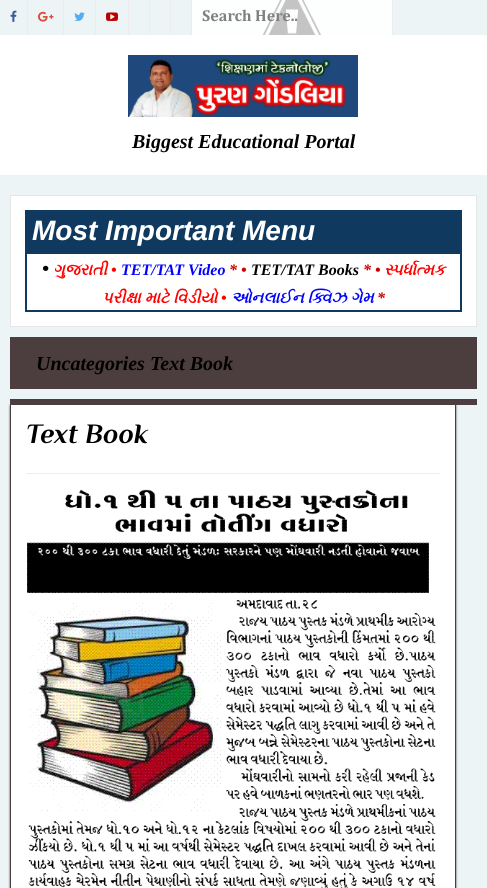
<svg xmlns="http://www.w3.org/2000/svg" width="487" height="888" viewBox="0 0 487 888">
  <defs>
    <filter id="blur1" x="-50%" y="-200%" width="200%" height="500%"><feGaussianBlur stdDeviation="1"/></filter>
  </defs>
  <rect width="100%" height="100%" fill="#ecf4f6"/>
  <rect x="27" y="0" width="1" height="35" fill="#ececec"/>
  <image x="10" y="10" width="7" height="12" href="img1.png"/>
  <rect x="63" y="0" width="1" height="35" fill="#ececec"/>
  <image x="38" y="11" width="16" height="11" href="img2.png"/>
  <rect x="95" y="0" width="1" height="35" fill="#ececec"/>
  <image x="74" y="12" width="11" height="9" href="img3.png"/>
  <rect x="128" y="0" width="1" height="35" fill="#ececec"/>
  <image x="106" y="12" width="12" height="9" href="img4.png"/>
  <rect x="149" y="0" width="1" height="35" fill="#ececec"/>
  <rect x="170" y="0" width="1" height="35" fill="#ececec"/>
  <rect x="191" y="0" width="1" height="35" fill="#ececec"/>
  <rect x="192" y="0" width="200" height="35" fill="#fdfefe"/>
  <image x="262" y="0" width="60" height="35" href="img5.png"/>
  <rect x="392" y="0" width="1" height="35" fill="#eceded"/>
  <text x="202" y="21" font-family="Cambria" font-size="16" font-weight="bold" fill="#7f8080">Search Here..</text>
  <rect x="0" y="35" width="487" height="140" fill="#ffffff"/>
  <image x="128" y="55" width="230" height="62" href="img6.png"/>
  <text x="132" y="148" font-family="Liberation Serif" font-size="20" font-weight="bold" font-style="italic" fill="#000000">Biggest Educational Portal</text>
  <rect x="10.5" y="195.5" width="466" height="131" fill="#ffffff" stroke="#e6e6e6"/>
  <rect x="25" y="210" width="437" height="42" fill="#0f395e"/>
  <text x="32" y="240" font-family="Liberation Sans" font-size="28" font-weight="bold" font-style="italic" fill="#ffffff">Most Important Menu</text>
  <rect x="26" y="253" width="435" height="58" fill="none" stroke="#0f395e" stroke-width="2"/>
  <text x="42" y="275" font-family="Liberation Serif" font-size="20" font-weight="bold" font-style="italic" fill="#000000">•</text>
  <text x="53" y="275" font-family="FreeSerif" font-size="16" font-weight="bold" font-style="italic" fill="#ff0000">ગુજરાતી</text>
  <text x="121" y="275" font-family="Liberation Serif" font-size="16" font-weight="bold" font-style="italic" fill="#0000ff">TET/TAT Video</text>
  <text x="229" y="275" font-family="Liberation Serif" font-size="16" font-weight="bold" font-style="italic" fill="#cc0000">* •</text>
  <text x="251" y="275" font-family="Liberation Serif" font-size="16" font-weight="bold" font-style="italic" fill="#000000">TET/TAT Books</text>
  <text x="363" y="275" font-family="Liberation Serif" font-size="16" font-weight="bold" font-style="italic" fill="#cc0000">* •</text>
  <text x="384" y="275" font-family="FreeSerif" font-size="16" font-weight="bold" font-style="italic" fill="#ff0000">સ્પર્ધાત્મક</text>
  <text x="111" y="275" font-family="Liberation Serif" font-size="16" font-weight="bold" font-style="italic" fill="#ff0000">•</text>
  <text x="102" y="303" font-family="FreeSerif" font-size="16" font-weight="bold" font-style="italic" fill="#ff0000">પરીક્ષા માટે વિડીયો</text>
  <text x="221" y="303" font-family="Liberation Serif" font-size="16" font-weight="bold" font-style="italic" fill="#ff0000">•</text>
  <text x="231" y="303" font-family="FreeSerif" font-size="16" font-weight="bold" font-style="italic" fill="#0000ff">ઓનલાઈન ક્વિઝ ગેમ</text>
  <text x="377" y="303" font-family="Liberation Serif" font-size="16" font-weight="bold" font-style="italic" fill="#cc0000">*</text>
  <rect x="10" y="337" width="467" height="52" fill="#4c3e3e"/>
  <text x="36" y="370" font-family="Liberation Serif" font-size="20" font-weight="bold" font-style="italic" fill="#000000">Uncategories Text Book</text>
  <rect x="10" y="399" width="467" height="6" fill="#4c3e3e"/>
  <rect x="10" y="405" width="446" height="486" fill="#4c3e3e" filter="url(#blur1)"/>
  <rect x="11" y="405" width="444" height="483" fill="#ffffff"/>
  <rect x="455" y="405" width="1" height="483" fill="#4c3e3e"/>
  <rect x="10" y="405" width="1" height="483" fill="#4c3e3e"/>
  <text x="26" y="443" font-family="Philosopher" font-size="28" font-weight="bold" font-style="italic" fill="#000000">Text Book</text>
  <rect x="26" y="473" width="414" height="1" fill="#eeeeee"/>
  <image x="27" y="489" width="409" height="399" href="img7.png"/>
</svg>
